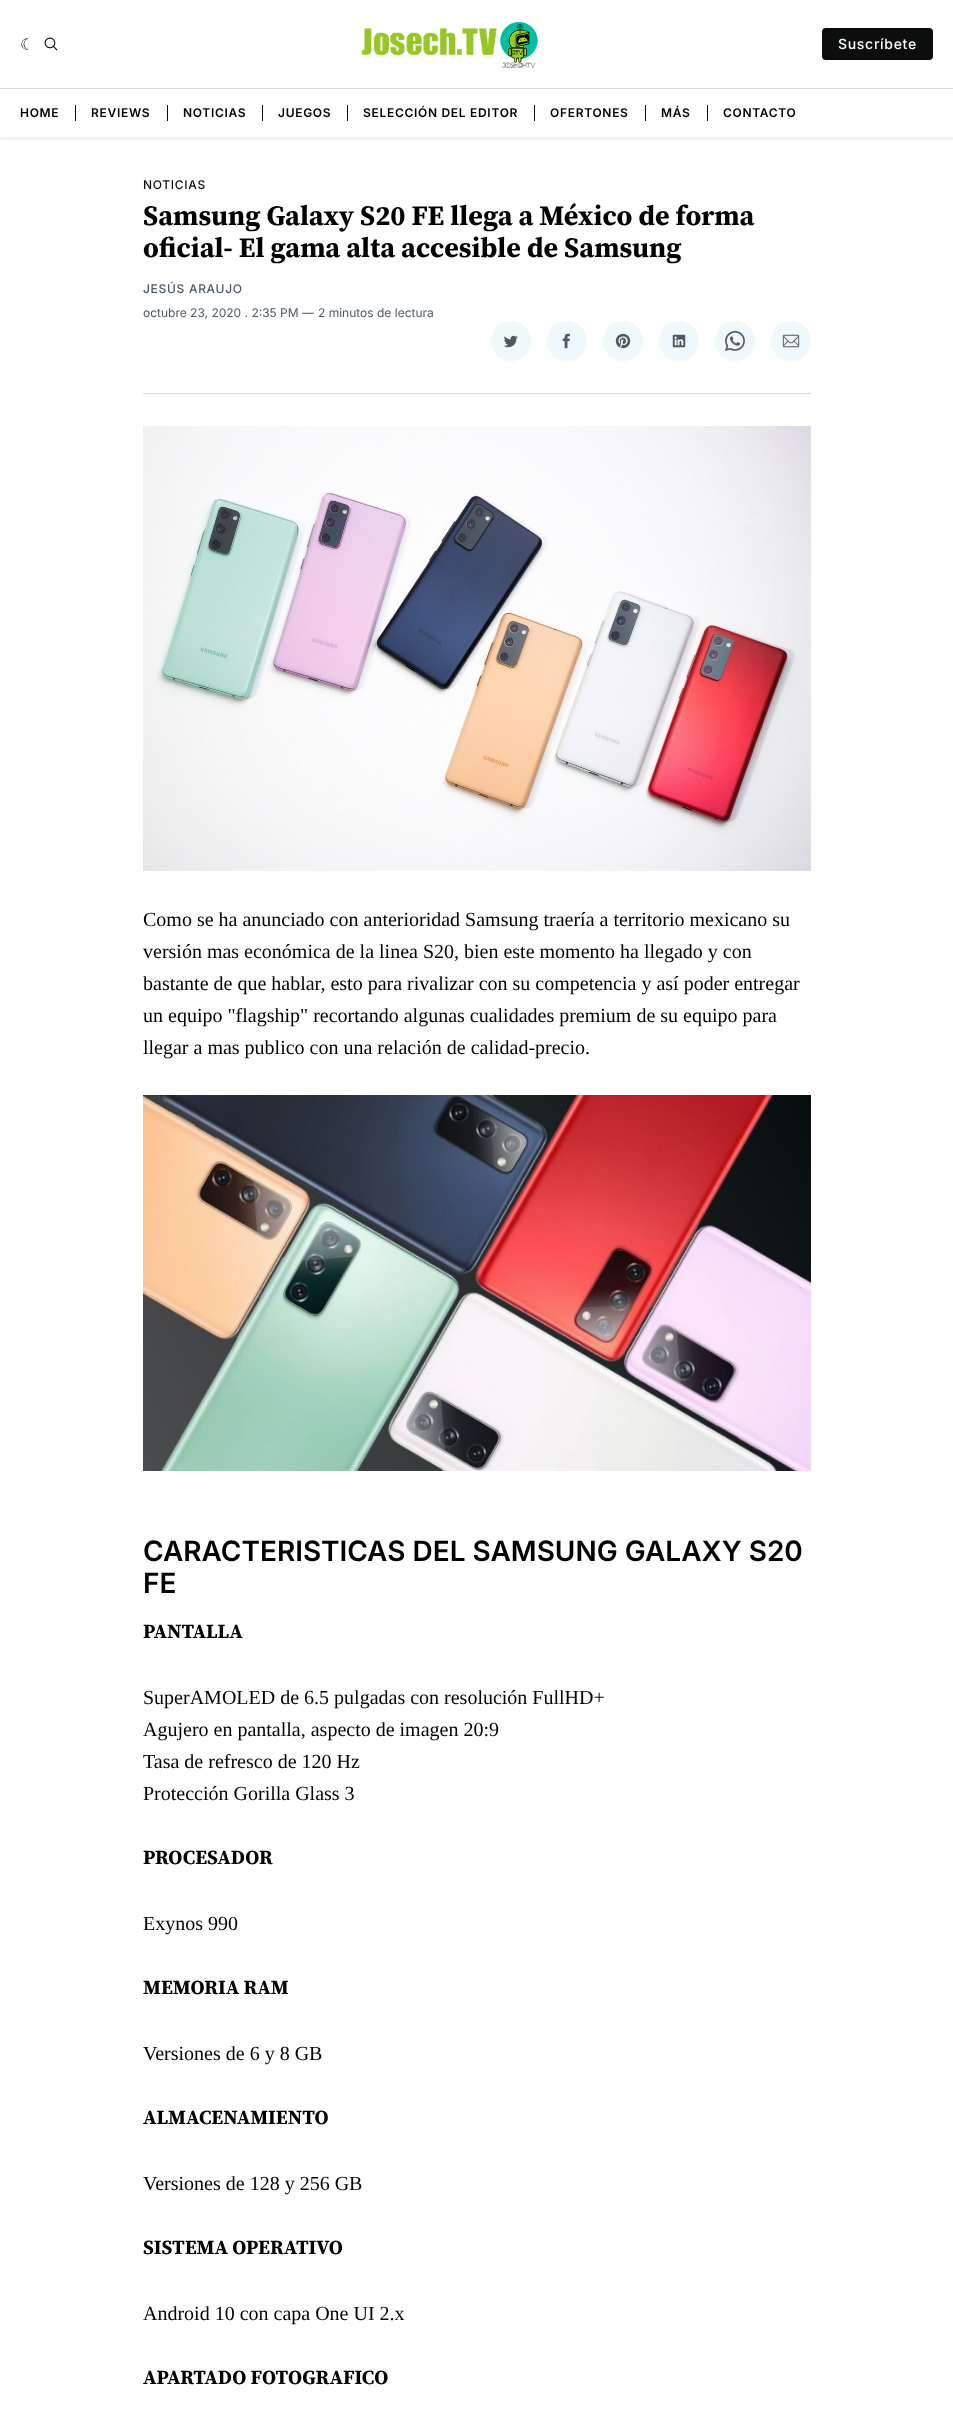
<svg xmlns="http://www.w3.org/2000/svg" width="953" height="2426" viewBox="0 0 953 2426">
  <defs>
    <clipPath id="clip1"><rect x="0" y="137" width="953" height="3"/></clipPath>
    <filter id="blur1" x="-50%" y="-200%" width="200%" height="500%"><feGaussianBlur stdDeviation="2"/></filter>
  </defs>
  <rect width="100%" height="100%" fill="#ffffff"/>
  <g clip-path="url(#clip1)">
    <rect x="-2" y="-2" width="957" height="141" fill="#000000" fill-opacity="0.08" filter="url(#blur1)"/>
  </g>
  <rect x="0" y="88" width="953" height="1" fill="#d9d9d9"/>
  <text x="20" y="50" font-family="DejaVu Sans" font-size="16" letter-spacing="0.7" fill="#000000">☾</text>
  <image x="44" y="37" width="14" height="14" href="img1.png"/>
  <image x="361" y="22" width="177" height="46" href="img2.png"/>
  <rect x="822" y="28" width="111" height="32" rx="4" fill="#0c0d0d"/>
  <text x="838" y="49" font-family="Inter" font-size="14" font-weight="500" letter-spacing="0.7" fill="#ffffff">Suscríbete</text>
  <text x="20" y="117" font-family="Inter" font-size="12" font-weight="600" letter-spacing="0.7" fill="#000000">HOME</text>
  <rect x="75" y="105" width="1" height="16" fill="#0c0d0d"/>
  <text x="91" y="117" font-family="Inter" font-size="12" font-weight="600" letter-spacing="0.7" fill="#000000">REVIEWS</text>
  <rect x="167" y="105" width="1" height="16" fill="#0c0d0d"/>
  <text x="183" y="117" font-family="Inter" font-size="12" font-weight="600" letter-spacing="0.7" fill="#000000">NOTICIAS</text>
  <rect x="262" y="105" width="1" height="16" fill="#0c0d0d"/>
  <text x="278" y="117" font-family="Inter" font-size="12" font-weight="600" letter-spacing="0.7" fill="#000000">JUEGOS</text>
  <rect x="347" y="105" width="1" height="16" fill="#0c0d0d"/>
  <text x="363" y="117" font-family="Inter" font-size="12" font-weight="600" letter-spacing="0.7" fill="#000000">SELECCIÓN DEL EDITOR</text>
  <rect x="534" y="105" width="1" height="16" fill="#0c0d0d"/>
  <text x="550" y="117" font-family="Inter" font-size="12" font-weight="600" letter-spacing="0.7" fill="#000000">OFERTONES</text>
  <rect x="645" y="105" width="1" height="16" fill="#0c0d0d"/>
  <text x="661" y="117" font-family="Inter" font-size="12" font-weight="600" letter-spacing="0.7" fill="#000000">MÁS</text>
  <rect x="707" y="105" width="1" height="16" fill="#0c0d0d"/>
  <text x="723" y="117" font-family="Inter" font-size="12" font-weight="600" letter-spacing="0.7" fill="#000000">CONTACTO</text>
  <rect x="143" y="393" width="668" height="1" fill="#d9d9d9"/>
  <text x="143" y="189" font-family="Inter" font-size="12" font-weight="500" letter-spacing="0.7" fill="#0c0d0d">NOTICIAS</text>
  <text x="143" y="225" font-family="Source Serif Pro" font-size="28" font-weight="bold" fill="#000000">Samsung Galaxy S20 FE llega a México de forma</text>
  <text x="143" y="257" font-family="Source Serif Pro" font-size="28" font-weight="bold" fill="#000000">oficial- El gama alta accesible de Samsung</text>
  <text x="143" y="293" font-family="Inter" font-size="12" font-weight="500" letter-spacing="0.7" fill="#4e5965">JESÚS ARAUJO</text>
  <text x="143" y="317" font-family="Inter" font-size="12" fill="#4e5965">octubre 23, 2020 . 2:35 PM —</text>
  <text x="318" y="317" font-family="Inter" font-size="12" fill="#4e5965">2 minutos de lectura</text>
  <circle cx="511" cy="341" r="20" fill="#eff8fa"/>
  <image x="504" y="335" width="14" height="13" href="img3.png"/>
  <circle cx="567" cy="341" r="20" fill="#eff8fa"/>
  <image x="562" y="333" width="8" height="16" href="img4.png"/>
  <circle cx="623" cy="341" r="20" fill="#eff8fa"/>
  <image x="615" y="333" width="16" height="16" href="img5.png"/>
  <circle cx="679" cy="341" r="20" fill="#eff8fa"/>
  <image x="672" y="334" width="14" height="14" href="img6.png"/>
  <circle cx="735" cy="341" r="20" fill="#eff8fa"/>
  <image x="725" y="331" width="20" height="20" href="img7.png"/>
  <circle cx="791" cy="341" r="20" fill="#eff8fa"/>
  <image x="782" y="334" width="18" height="14" href="img8.png"/>
  <image x="143" y="426" width="668" height="445" href="img9.png"/>
  <text x="143" y="926" font-family="Liberation Serif" font-size="20" fill="#000000">Como se ha anunciado con anterioridad Samsung traería a territorio mexicano su</text>
  <text x="143" y="958" font-family="Liberation Serif" font-size="20" fill="#000000">versión mas económica de la linea S20, bien este momento ha llegado y con</text>
  <text x="143" y="990" font-family="Liberation Serif" font-size="20" fill="#000000">bastante de que hablar, esto para rivalizar con su competencia y así poder entregar</text>
  <text x="143" y="1022" font-family="Liberation Serif" font-size="20" fill="#000000">un equipo "flagship" recortando algunas cualidades premium de su equipo para</text>
  <text x="143" y="1054" font-family="Liberation Serif" font-size="20" fill="#000000">llegar a mas publico con una relación de calidad-precio.</text>
  <image x="143" y="1095" width="668" height="376" href="img10.png"/>
  <text x="143" y="1561" font-family="Inter" font-size="28" font-weight="600" fill="#000000">CARACTERISTICAS DEL SAMSUNG GALAXY S20</text>
  <text x="143" y="1593" font-family="Inter" font-size="28" font-weight="600" fill="#000000">FE</text>
  <text x="143" y="1638" font-family="Source Serif Pro" font-size="20" font-weight="bold" fill="#000000">PANTALLA</text>
  <text x="143" y="1704" font-family="Liberation Serif" font-size="20" fill="#000000">SuperAMOLED de 6.5 pulgadas con resolución FullHD+</text>
  <text x="143" y="1736" font-family="Liberation Serif" font-size="20" fill="#000000">Agujero en pantalla, aspecto de imagen 20:9</text>
  <text x="143" y="1768" font-family="Liberation Serif" font-size="20" fill="#000000">Tasa de refresco de 120 Hz</text>
  <text x="143" y="1800" font-family="Liberation Serif" font-size="20" fill="#000000">Protección Gorilla Glass 3</text>
  <text x="143" y="1864" font-family="Source Serif Pro" font-size="20" font-weight="bold" fill="#000000">PROCESADOR</text>
  <text x="143" y="1930" font-family="Liberation Serif" font-size="20" fill="#000000">Exynos 990</text>
  <text x="143" y="1994" font-family="Source Serif Pro" font-size="20" font-weight="bold" fill="#000000">MEMORIA RAM</text>
  <text x="143" y="2060" font-family="Liberation Serif" font-size="20" fill="#000000">Versiones de 6 y 8 GB</text>
  <text x="143" y="2124" font-family="Source Serif Pro" font-size="20" font-weight="bold" fill="#000000">ALMACENAMIENTO</text>
  <text x="143" y="2190" font-family="Liberation Serif" font-size="20" fill="#000000">Versiones de 128 y 256 GB</text>
  <text x="143" y="2254" font-family="Source Serif Pro" font-size="20" font-weight="bold" fill="#000000">SISTEMA OPERATIVO</text>
  <text x="143" y="2320" font-family="Liberation Serif" font-size="20" fill="#000000">Android 10 con capa One UI 2.x</text>
  <text x="143" y="2384" font-family="Source Serif Pro" font-size="20" font-weight="bold" fill="#000000">APARTADO FOTOGRAFICO</text>
</svg>
